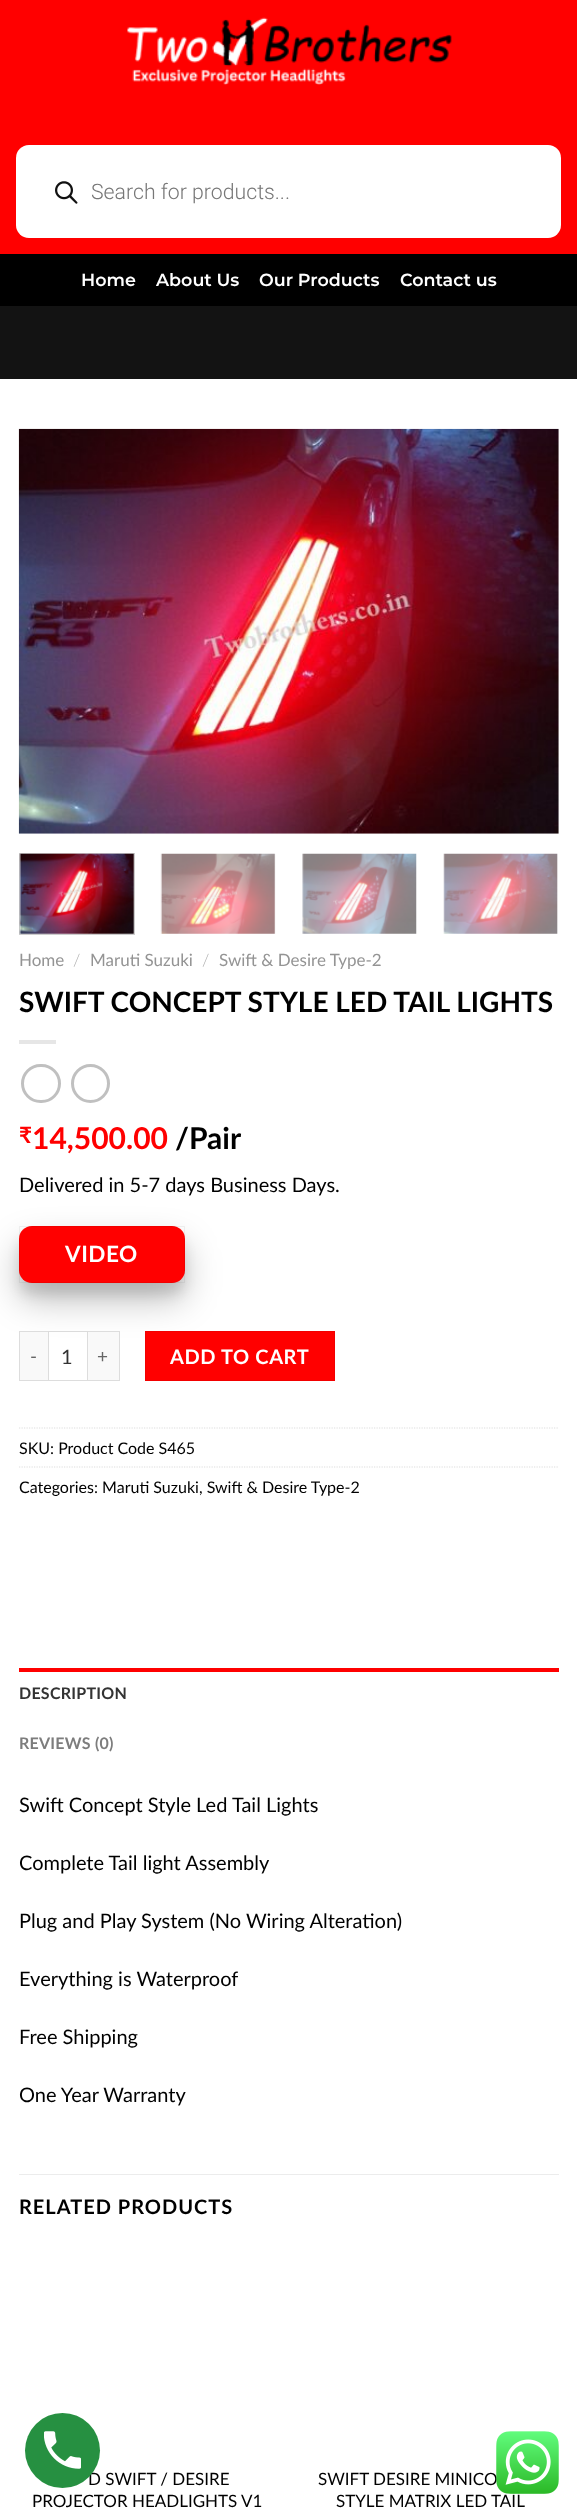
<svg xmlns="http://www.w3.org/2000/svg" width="577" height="2512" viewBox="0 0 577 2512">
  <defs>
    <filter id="blur1" x="-50%" y="-200%" width="200%" height="500%"><feGaussianBlur stdDeviation="6"/></filter>
    <filter id="blur2" x="-50%" y="-200%" width="200%" height="500%"><feGaussianBlur stdDeviation="17.5"/></filter>
  </defs>
  <rect width="100%" height="100%" fill="#ffffff"/>
  <rect x="0" y="0" width="577" height="254" fill="#ff0000"/>
  <image x="127" y="17" width="325" height="68" href="img1.png"/>
  <rect x="16" y="145" width="545" height="93" rx="13" fill="#ffffff"/>
  <image x="55" y="181" width="23" height="23" href="img2.png"/>
  <text x="91" y="199" font-family="Roboto" font-size="21.25" font-weight="300" fill="#777777">Search for products...</text>
  <rect x="0" y="254" width="577" height="52" fill="#000000"/>
  <text x="81" y="286" font-family="Montserrat" font-size="17.5" font-weight="600" fill="#ffffff">Home</text>
  <text x="156" y="286" font-family="Montserrat" font-size="17.5" font-weight="600" fill="#ffffff">About Us</text>
  <text x="259" y="286" font-family="Montserrat" font-size="17.5" font-weight="600" fill="#ffffff">Our Products</text>
  <text x="400" y="286" font-family="Montserrat" font-size="17.5" font-weight="600" fill="#ffffff">Contact us</text>
  <rect x="0" y="306" width="577" height="73" fill="#131313"/>
  <image x="18" y="428" width="541" height="406" href="img3.png"/>
  <rect x="19.5" y="853.5" width="115" height="81" fill="none" stroke="#cccccc"/>
  <image x="19" y="853" width="115" height="81" href="img4.png"/>
  <image x="160" y="853" width="116" height="81" href="img5.png"/>
  <image x="302" y="853" width="115" height="81" href="img6.png"/>
  <image x="443" y="853" width="115" height="81" href="img7.png"/>
  <text x="19" y="966" font-family="Lato" font-size="17" fill="#949494">Home</text>
  <text x="73" y="966" font-family="Lato" font-size="17" font-weight="300" fill="#b2b2b2">/</text>
  <text x="90" y="966" font-family="Lato" font-size="17" fill="#949494">Maruti Suzuki</text>
  <text x="202" y="966" font-family="Lato" font-size="17" font-weight="300" fill="#b2b2b2">/</text>
  <text x="219" y="966" font-family="Lato" font-size="17" fill="#949494">Swift &amp; Desire Type-2</text>
  <text x="19" y="1012" font-family="Lato" font-size="28" font-weight="bold" fill="#000000">SWIFT CONCEPT STYLE LED TAIL LIGHTS</text>
  <rect x="19" y="1040" width="37" height="4" fill="#e6e6e6"/>
  <rect x="22.5" y="1065.5" width="37" height="36" rx="18" fill="none" stroke="#c0c0c0" stroke-width="3"/>
  <circle cx="90.5" cy="1083.5" r="18" fill="none" stroke="#c0c0c0" stroke-width="3"/>
  <text x="19" y="1143" font-family="Lato" font-size="22.5" font-weight="bold" fill="#ff0000">₹</text>
  <text x="32" y="1149" font-family="Lato" font-size="30" font-weight="bold" fill="#ff0000">14,500.00</text>
  <text x="175" y="1149" font-family="Lato" font-size="30" font-weight="bold" fill="#000000">/Pair</text>
  <text x="19" y="1192" font-family="Lato" font-size="20" fill="#000000">Delivered in 5-7 days Business Days.</text>
  <rect x="19" y="1239" width="166" height="56" rx="13" fill="#000000" fill-opacity="0.1" filter="url(#blur1)"/>
  <rect x="48.5" y="1331.5" width="39" height="49" fill="none" stroke="#dddddd"/>
  <rect x="19" y="1244" width="166" height="56" rx="13" fill="#000000" fill-opacity="0.25" filter="url(#blur2)"/>
  <rect x="19" y="1226" width="166" height="57" rx="13" fill="#ff0000"/>
  <rect x="19.5" y="1226.5" width="165" height="56" fill="none" stroke="#000000" stroke-opacity="0.05"/>
  <text x="65" y="1262" font-family="Lato" font-size="22.5" font-weight="bold" letter-spacing="0.5" fill="#ffffff">VIDEO</text>
  <rect x="20" y="1332" width="28" height="48" fill="#f9f9f9"/>
  <rect x="19" y="1331" width="29" height="1" fill="#dddddd"/>
  <rect x="19" y="1380" width="29" height="1" fill="#dddddd"/>
  <rect x="19" y="1331" width="1" height="50" fill="#dddddd"/>
  <text x="30" y="1363" font-family="Lato" font-size="19" letter-spacing="1" fill="#666666">-</text>
  <text x="61" y="1364" font-family="Lato" font-size="20" fill="#333333">1</text>
  <rect x="88" y="1332" width="31" height="48" fill="#f9f9f9"/>
  <rect x="88" y="1331" width="32" height="1" fill="#dddddd"/>
  <rect x="119" y="1331" width="1" height="50" fill="#dddddd"/>
  <rect x="88" y="1380" width="32" height="1" fill="#dddddd"/>
  <text x="97" y="1363" font-family="Lato" font-size="19" letter-spacing="1" fill="#666666">+</text>
  <rect x="145.5" y="1331.5" width="189" height="49" fill="#ff0000" stroke="#f20000"/>
  <text x="170" y="1364" font-family="Lato" font-size="20" font-weight="bold" letter-spacing="0.6" fill="#ffffff">ADD TO CART</text>
  <path d="M19 1428H559" fill="none" stroke="#dddddd" stroke-width="1.2" stroke-dasharray="1.25 1.25"/>
  <text x="19" y="1454" font-family="Lato" font-size="16" fill="#000000">SKU: Product Code S465</text>
  <path d="M19 1467H559" fill="none" stroke="#dddddd" stroke-width="1.2" stroke-dasharray="1.25 1.25"/>
  <text x="19" y="1493" font-family="Lato" font-size="16" fill="#000000">Categories: Maruti Suzuki, Swift &amp; Desire Type-2</text>
  <rect x="19" y="1668" width="540" height="4" fill="#ff0000"/>
  <text x="19" y="1699" font-family="Lato" font-size="16" font-weight="bold" letter-spacing="0.25" fill="#333333">DESCRIPTION</text>
  <text x="19" y="1749" font-family="Lato" font-size="16" font-weight="bold" letter-spacing="0.25" fill="#7d7d7d">REVIEWS (0)</text>
  <text x="19" y="1812" font-family="Lato" font-size="20" fill="#000000">Swift Concept Style Led Tail Lights</text>
  <text x="19" y="1870" font-family="Lato" font-size="20" fill="#000000">Complete Tail light Assembly</text>
  <text x="19" y="1928" font-family="Lato" font-size="20" fill="#000000">Plug and Play System (No Wiring Alteration)</text>
  <text x="19" y="1986" font-family="Lato" font-size="20" fill="#000000">Everything is Waterproof</text>
  <text x="19" y="2044" font-family="Lato" font-size="20" fill="#000000">Free Shipping</text>
  <text x="19" y="2102" font-family="Lato" font-size="20" fill="#000000">One Year Warranty</text>
  <rect x="19" y="2174" width="540" height="1" fill="#ececec"/>
  <text x="19" y="2214" font-family="Lato" font-size="20" font-weight="bold" letter-spacing="1" fill="#000000">RELATED PRODUCTS</text>
  <text x="88" y="2485" font-family="Lato" font-size="17" fill="#000000">D SWIFT / DESIRE</text>
  <text x="32" y="2507" font-family="Lato" font-size="17" fill="#000000">PROJECTOR HEADLIGHTS V1</text>
  <text x="318" y="2485" font-family="Lato" font-size="17" fill="#000000">SWIFT DESIRE MINICO</text>
  <text x="336" y="2507" font-family="Lato" font-size="17" fill="#000000">STYLE MATRIX LED TAIL</text>
  <circle cx="62.5" cy="2450.5" r="37.5" fill="#269041"/>
  <image x="44" y="2431" width="37" height="38" href="img8.png"/>
  <image x="496" y="2431" width="63" height="63" href="img9.png"/>
</svg>
